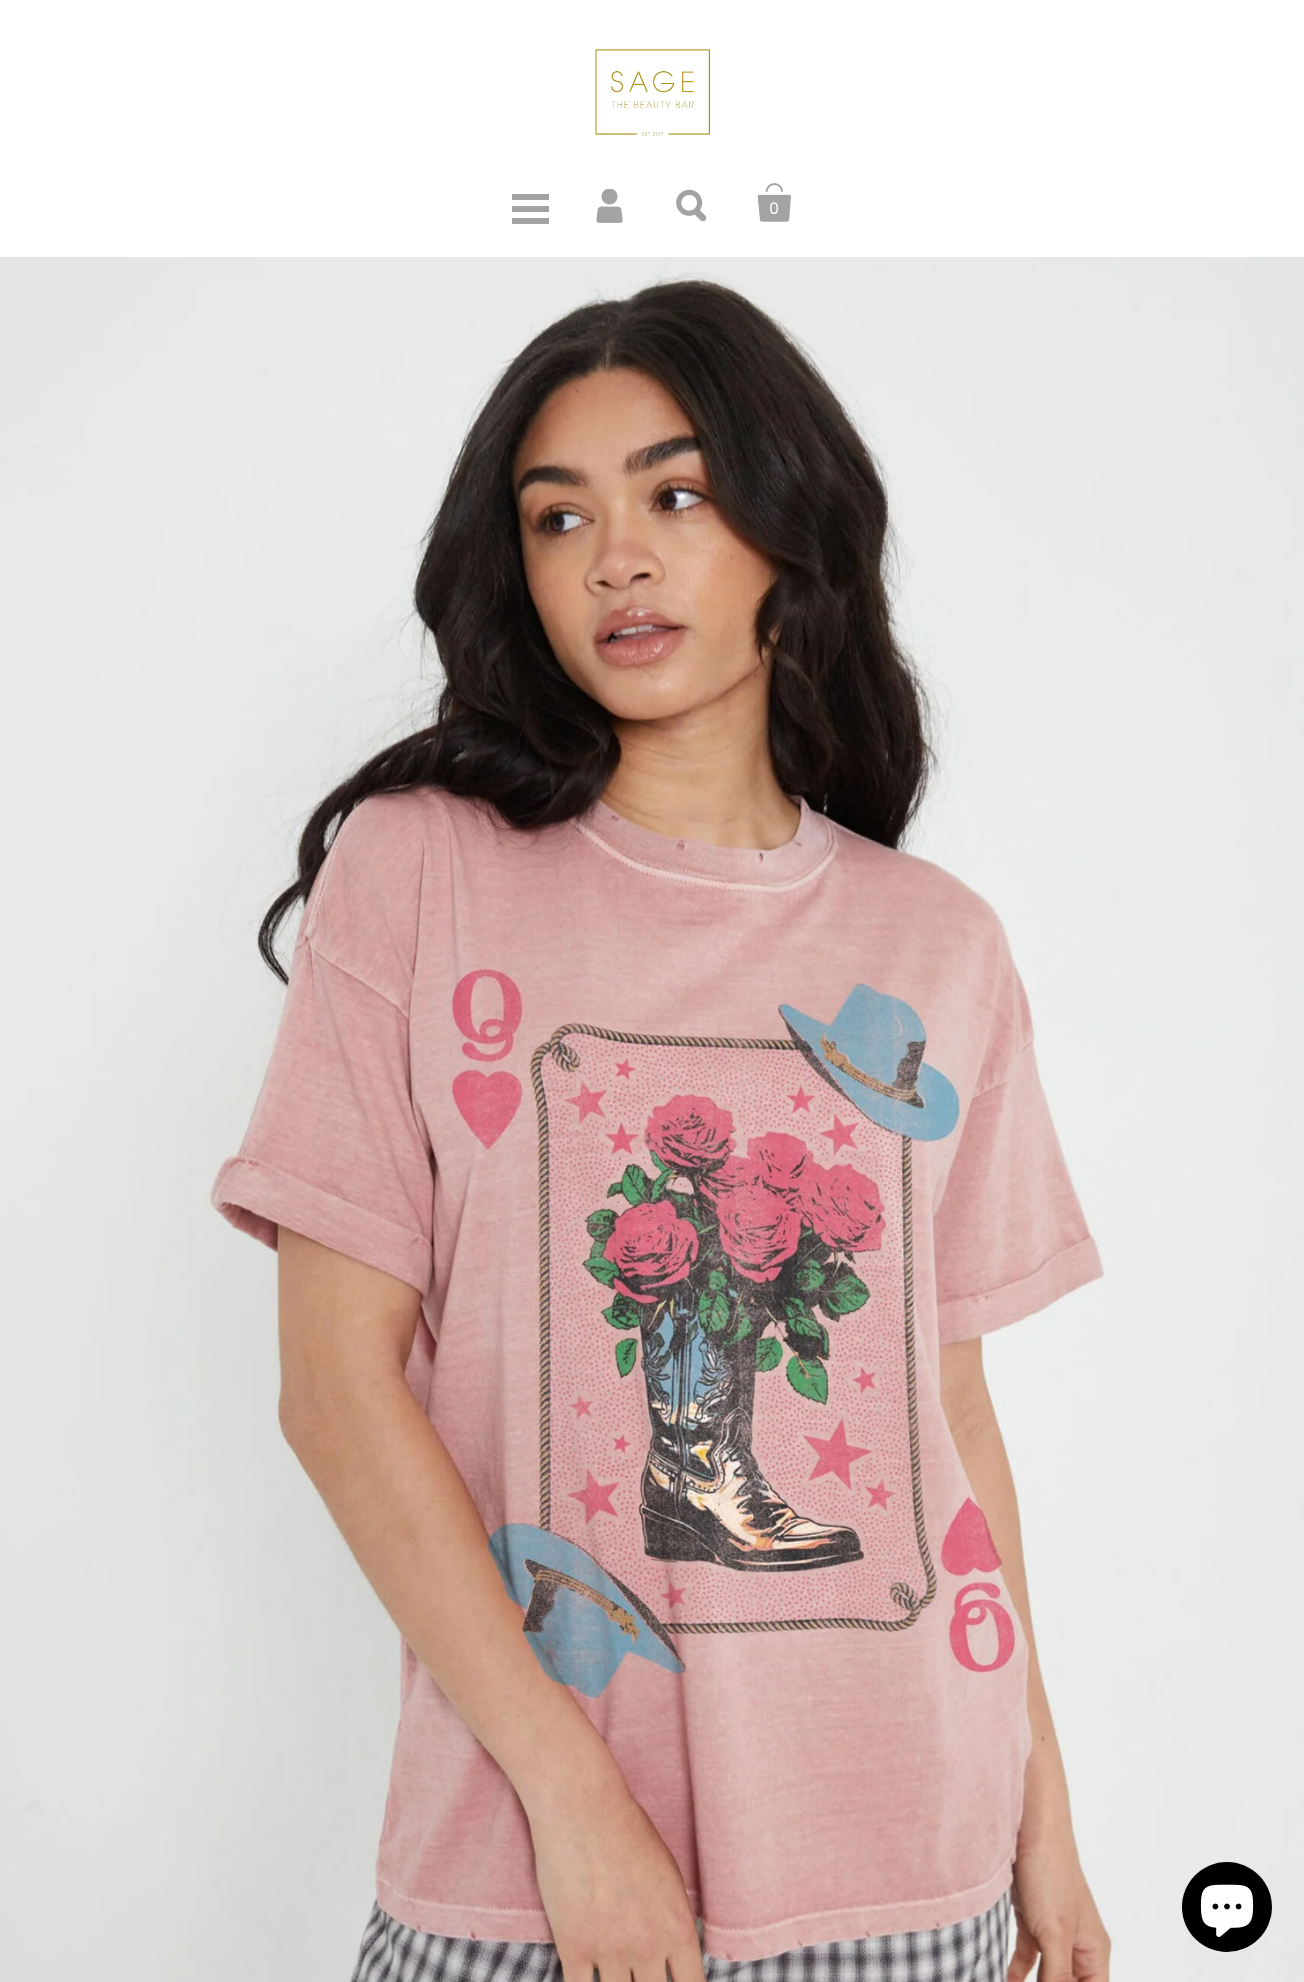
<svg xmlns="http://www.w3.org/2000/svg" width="1304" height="1982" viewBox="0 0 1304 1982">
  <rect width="100%" height="100%" fill="#ffffff"/>
  <image x="595" y="49" width="116" height="88" href="img1.png"/>
  <rect x="512" y="194" width="37" height="6" fill="#a3a3a3"/>
  <rect x="512" y="206" width="37" height="6" fill="#a3a3a3"/>
  <rect x="512" y="218" width="37" height="6" fill="#a3a3a3"/>
  <image x="596" y="189" width="27" height="34" href="img2.png"/>
  <image x="676" y="189" width="31" height="33" href="img3.png"/>
  <image x="757" y="183" width="34" height="39" href="img4.png"/>
  <text x="769" y="214" font-family="Poppins" font-size="16" fill="#ffffff">0</text>
  <image x="0" y="257" width="1304" height="1725" href="img5.png"/>
  <circle cx="1227" cy="1907" r="45" fill="#000000"/>
  <image x="1200" y="1884" width="54" height="53" href="img6.png"/>
</svg>
